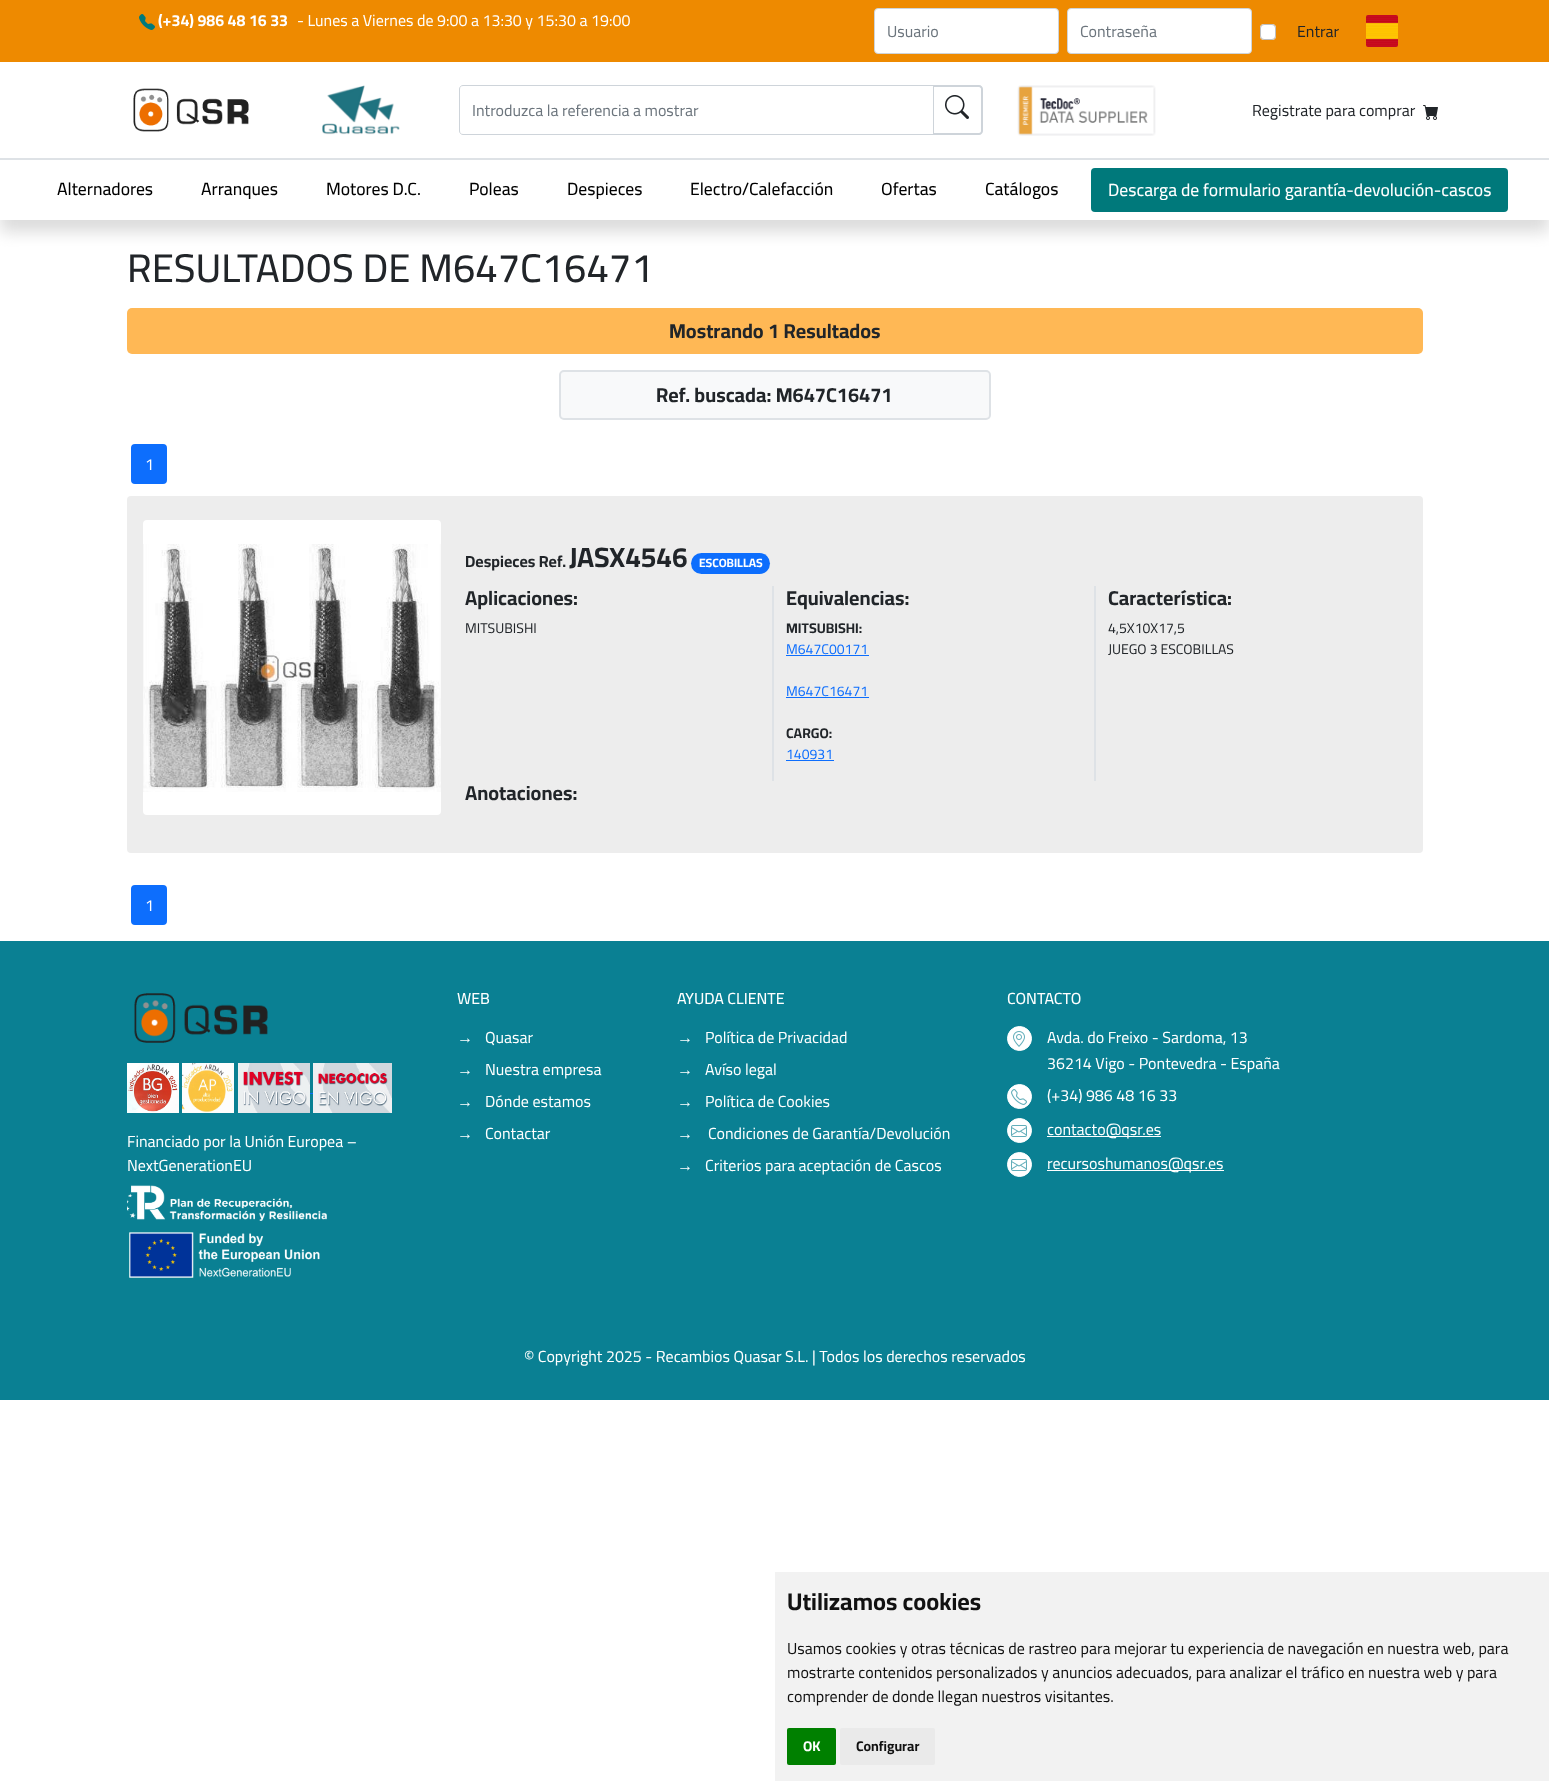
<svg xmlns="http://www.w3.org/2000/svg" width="1549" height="1781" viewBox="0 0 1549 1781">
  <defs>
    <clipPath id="clip1"><rect x="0" y="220" width="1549" height="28"/></clipPath>
    <filter id="blur1" x="-50%" y="-200%" width="200%" height="500%"><feGaussianBlur stdDeviation="8"/></filter>
  </defs>
  <rect width="100%" height="100%" fill="#ffffff"/>
  <g clip-path="url(#clip1)">
    <rect x="0" y="12" width="1549" height="220" fill="#dbdbdb" filter="url(#blur1)"/>
  </g>
  <rect x="0" y="0" width="1549" height="62" fill="#ee8a00"/>
  <image x="139" y="14" width="16" height="16" href="img1.png"/>
  <text x="158" y="26" font-family="Cairo" font-size="16" font-weight="bold" fill="#ffffff">(+34) 986 48 16 33</text>
  <text x="297" y="26" font-family="Cairo" font-size="16" fill="#ffffff">- Lunes a Viernes de 9:00 a 13:30 y 15:30 a 19:00</text>
  <rect x="874.5" y="8.5" width="184" height="45" rx="3.5" fill="#ffffff" stroke="#ced4da"/>
  <text x="887" y="37" font-family="Cairo" font-size="16" fill="#6c757d">Usuario</text>
  <rect x="1067.5" y="8.5" width="184" height="45" rx="3.5" fill="#ffffff" stroke="#ced4da"/>
  <text x="1080" y="37" font-family="Cairo" font-size="16" fill="#6c757d">Contraseña</text>
  <rect x="1260" y="24" width="16" height="16" rx="4" fill="#ffffff"/>
  <rect x="1260.5" y="24.5" width="15" height="15" rx="3.5" fill="none" stroke="#000000" stroke-opacity="0.25"/>
  <text x="1297" y="37" font-family="Cairo" font-size="16" fill="#212529">Entrar</text>
  <image x="1366" y="15" width="32" height="32" href="img2.png"/>
  <image x="133" y="88" width="116" height="44" href="img3.png"/>
  <image x="322" y="85" width="78" height="50" href="img4.png"/>
  <path d="M933 85H979C981 85 983 87 983 89V131C983 133 981 135 979 135H933ZM933 87H979C980 87 981 88 981 89V131C981 132 980 133 979 133H933Z" fill="#ced4da" fill-rule="evenodd"/>
  <path d="M463 85.5H933.5V134.5H463C461 134.5 459.5 133 459.5 131V89C459.5 87 461 85.5 463 85.5Z" fill="none" stroke="#ced4da"/>
  <text x="472" y="116" font-family="Cairo" font-size="16" fill="#6c757d">Introduzca la referencia a mostrar</text>
  <image x="945" y="95" width="24" height="24" href="img5.png"/>
  <image x="1017" y="85" width="139" height="51" href="img6.png"/>
  <text x="1252" y="116" font-family="Cairo" font-size="16" fill="#212529">Registrate para comprar</text>
  <image x="1423" y="105" width="15" height="15" href="img7.png"/>
  <rect x="0" y="158" width="1549" height="2" fill="#dee2e6"/>
  <text x="57" y="195" font-family="Cairo" font-size="17.6" font-weight="500" fill="#000000">Alternadores</text>
  <text x="201" y="195" font-family="Cairo" font-size="17.6" font-weight="500" fill="#000000">Arranques</text>
  <text x="326" y="195" font-family="Cairo" font-size="17.6" font-weight="500" fill="#000000">Motores D.C.</text>
  <text x="469" y="195" font-family="Cairo" font-size="17.6" font-weight="500" fill="#000000">Poleas</text>
  <text x="567" y="195" font-family="Cairo" font-size="17.6" font-weight="500" fill="#000000">Despieces</text>
  <text x="690" y="195" font-family="Cairo" font-size="17.6" font-weight="500" fill="#000000">Electro/Calefacción</text>
  <text x="881" y="195" font-family="Cairo" font-size="17.6" font-weight="500" fill="#000000">Ofertas</text>
  <text x="985" y="195" font-family="Cairo" font-size="17.6" font-weight="500" fill="#000000">Catálogos</text>
  <rect x="1091" y="168" width="417" height="44" rx="4" fill="#00797b"/>
  <text x="1108" y="196" font-family="Cairo" font-size="17.6" font-weight="500" fill="#ffffff">Descarga de formulario garantía-devolución-cascos</text>
  <text x="127" y="282" font-family="Cairo" font-size="40" font-weight="500" fill="#212529">RESULTADOS DE M647C16471</text>
  <rect x="127" y="308" width="1296" height="46" rx="5" fill="#ffb855"/>
  <text x="669" y="338" font-family="Cairo" font-size="20" font-weight="bold" fill="#212529">Mostrando 1 Resultados</text>
  <rect x="560" y="371" width="430" height="48" rx="4" fill="#f8f9fa" stroke="#dee2e6" stroke-width="2"/>
  <text x="656" y="402" font-family="Cairo" font-size="20" font-weight="bold" fill="#212529">Ref. buscada: M647C16471</text>
  <rect x="132" y="445" width="34" height="38" rx="3" fill="#0d6efd" stroke="#0d6efd" stroke-width="2"/>
  <text x="145" y="470" font-family="Cairo" font-size="16" fill="#ffffff">1</text>
  <rect x="127" y="496" width="1296" height="357" rx="4" fill="#ededed"/>
  <rect x="143" y="520" width="298" height="295" rx="4" fill="#ffffff"/>
  <image x="143" y="544" width="298" height="248" href="img8.png"/>
  <text x="465" y="567" font-family="Cairo" font-size="16" font-weight="bold" fill="#212529">Despieces Ref.</text>
  <text x="569" y="567" font-family="Cairo" font-size="28" font-weight="bold" fill="#212529">JASX4546</text>
  <rect x="691" y="553" width="79" height="21" rx="10.5" fill="#0d6efd"/>
  <text x="699" y="567" font-family="Cairo" font-size="12" font-weight="bold" fill="#ffffff">ESCOBILLAS</text>
  <rect x="772" y="586" width="2" height="195" fill="#dee2e6"/>
  <text x="465" y="605" font-family="Cairo" font-size="20" font-weight="bold" fill="#212529">Aplicaciones:</text>
  <text x="465" y="633" font-family="Cairo" font-size="14" fill="#212529">MITSUBISHI</text>
  <rect x="1094" y="586" width="2" height="195" fill="#dee2e6"/>
  <text x="786" y="605" font-family="Cairo" font-size="20" font-weight="bold" fill="#212529">Equivalencias:</text>
  <text x="786" y="633" font-family="Cairo" font-size="14" font-weight="bold" fill="#212529">MITSUBISHI:</text>
  <text x="786" y="654" font-family="Cairo" font-size="14" fill="#0d6efd">M647C00171</text>
  <rect x="786" y="655" width="83" height="1" fill="#0d6efd"/>
  <text x="786" y="696" font-family="Cairo" font-size="14" fill="#0d6efd">M647C16471</text>
  <rect x="786" y="697" width="83" height="1" fill="#0d6efd"/>
  <text x="786" y="738" font-family="Cairo" font-size="14" font-weight="bold" fill="#212529">CARGO:</text>
  <text x="786" y="759" font-family="Cairo" font-size="14" fill="#0d6efd">140931</text>
  <rect x="786" y="760" width="48" height="1" fill="#0d6efd"/>
  <text x="1108" y="605" font-family="Cairo" font-size="20" font-weight="bold" fill="#212529">Característica:</text>
  <text x="1108" y="633" font-family="Cairo" font-size="14" fill="#212529">4,5X10X17,5</text>
  <text x="1108" y="654" font-family="Cairo" font-size="14" fill="#212529">JUEGO 3 ESCOBILLAS</text>
  <text x="465" y="800" font-family="Cairo" font-size="20" font-weight="bold" fill="#212529">Anotaciones:</text>
  <rect x="132" y="886" width="34" height="38" rx="3" fill="#0d6efd" stroke="#0d6efd" stroke-width="2"/>
  <text x="145" y="911" font-family="Cairo" font-size="16" fill="#ffffff">1</text>
  <rect x="0" y="941" width="1549" height="459" fill="#0a8093"/>
  <image x="134" y="993" width="134" height="50" href="img9.png"/>
  <image x="127" y="1063" width="52" height="50" href="img10.png"/>
  <image x="182" y="1063" width="52" height="50" href="img11.png"/>
  <image x="238" y="1063" width="72" height="50" href="img12.png"/>
  <rect x="310" y="1093" width="3" height="1" fill="#0d6efd"/>
  <image x="313" y="1063" width="79" height="50" href="img13.png"/>
  <text x="127" y="1147" font-family="Cairo" font-size="16" fill="#ffffff">Financiado por la Unión Europea –</text>
  <text x="127" y="1171" font-family="Cairo" font-size="16" fill="#ffffff">NextGenerationEU</text>
  <image x="127" y="1185" width="200" height="36" href="img14.png"/>
  <image x="129" y="1232" width="191" height="46" href="img15.png"/>
  <text x="457" y="1004" font-family="Cairo" font-size="16" font-weight="500" fill="#ffffff">WEB</text>
  <text x="457" y="1043" font-family="Liberation Sans" font-size="16" fill="#ffffff">→</text>
  <text x="485" y="1043" font-family="Cairo" font-size="16" fill="#ffffff">Quasar</text>
  <text x="457" y="1075" font-family="Liberation Sans" font-size="16" fill="#ffffff">→</text>
  <text x="485" y="1075" font-family="Cairo" font-size="16" fill="#ffffff">Nuestra empresa</text>
  <text x="457" y="1107" font-family="Liberation Sans" font-size="16" fill="#ffffff">→</text>
  <text x="485" y="1107" font-family="Cairo" font-size="16" fill="#ffffff">Dónde estamos</text>
  <text x="457" y="1139" font-family="Liberation Sans" font-size="16" fill="#ffffff">→</text>
  <text x="485" y="1139" font-family="Cairo" font-size="16" fill="#ffffff">Contactar</text>
  <text x="677" y="1004" font-family="Cairo" font-size="16" font-weight="500" fill="#ffffff">AYUDA CLIENTE</text>
  <text x="677" y="1043" font-family="Liberation Sans" font-size="16" fill="#ffffff">→</text>
  <text x="705" y="1043" font-family="Cairo" font-size="16" fill="#ffffff">Política de Privacidad</text>
  <text x="677" y="1075" font-family="Liberation Sans" font-size="16" fill="#ffffff">→</text>
  <text x="705" y="1075" font-family="Cairo" font-size="16" fill="#ffffff">Avíso legal</text>
  <text x="677" y="1107" font-family="Liberation Sans" font-size="16" fill="#ffffff">→</text>
  <text x="705" y="1107" font-family="Cairo" font-size="16" fill="#ffffff">Política de Cookies</text>
  <text x="677" y="1139" font-family="Liberation Sans" font-size="16" fill="#ffffff">→</text>
  <text x="708" y="1139" font-family="Cairo" font-size="16" fill="#ffffff">Condiciones de Garantía/Devolución</text>
  <text x="677" y="1171" font-family="Liberation Sans" font-size="16" fill="#ffffff">→</text>
  <text x="705" y="1171" font-family="Cairo" font-size="16" fill="#ffffff">Criterios para aceptación de Cascos</text>
  <text x="1007" y="1004" font-family="Cairo" font-size="16" font-weight="500" fill="#ffffff">CONTACTO</text>
  <circle cx="1019.5" cy="1038.5" r="12" fill="#ffffff" stroke="#ffffff"/>
  <image x="1013" y="1031" width="12" height="16" href="img16.png"/>
  <text x="1047" y="1043" font-family="Cairo" font-size="16" fill="#ffffff">Avda. do Freixo - Sardoma, 13</text>
  <text x="1047" y="1069" font-family="Cairo" font-size="16" fill="#ffffff">36214 Vigo - Pontevedra - España</text>
  <circle cx="1019.5" cy="1096.5" r="12" fill="#ffffff" stroke="#ffffff"/>
  <image x="1011" y="1089" width="16" height="16" href="img17.png"/>
  <text x="1047" y="1101" font-family="Cairo" font-size="16" fill="#ffffff">(+34) 986 48 16 33</text>
  <circle cx="1019.5" cy="1130.5" r="12" fill="#ffffff" stroke="#ffffff"/>
  <image x="1011" y="1125" width="16" height="12" href="img18.png"/>
  <rect x="1047" y="1136" width="114" height="1" fill="#ffffff"/>
  <text x="1047" y="1135" font-family="Cairo" font-size="16" fill="#ffffff">contacto@qsr.es</text>
  <circle cx="1019.5" cy="1164.5" r="12" fill="#ffffff" stroke="#ffffff"/>
  <image x="1011" y="1159" width="16" height="12" href="img18.png"/>
  <rect x="1047" y="1170" width="177" height="1" fill="#ffffff"/>
  <text x="1047" y="1169" font-family="Cairo" font-size="16" fill="#ffffff">recursoshumanos@qsr.es</text>
  <text x="524" y="1362" font-family="Cairo" font-size="16" fill="#ffffff">© Copyright 2025 - Recambios Quasar S.L. | Todos los derechos reservados</text>
  <rect x="775" y="1572" width="774" height="209" fill="#f2f2f2"/>
  <text x="787" y="1610" font-family="Cairo" font-size="24" font-weight="bold" fill="#111111">Utilizamos cookies</text>
  <text x="787" y="1654" font-family="Cairo" font-size="16" fill="#111111">Usamos cookies y otras técnicas de rastreo para mejorar tu experiencia de navegación en nuestra web, para</text>
  <text x="787" y="1678" font-family="Cairo" font-size="16" fill="#111111">mostrarte contenidos personalizados y anuncios adecuados, para analizar el tráfico en nuestra web y para</text>
  <text x="787" y="1702" font-family="Cairo" font-size="16" fill="#111111">comprender de donde llegan nuestros visitantes.</text>
  <rect x="787" y="1728" width="49" height="37" rx="2" fill="#008000"/>
  <text x="803" y="1751" font-family="Cairo" font-size="14" font-weight="bold" fill="#ffffff">OK</text>
  <rect x="840" y="1728" width="95" height="37" rx="2" fill="#eaeaea"/>
  <text x="856" y="1751" font-family="Cairo" font-size="14" font-weight="bold" fill="#111111">Configurar</text>
</svg>
